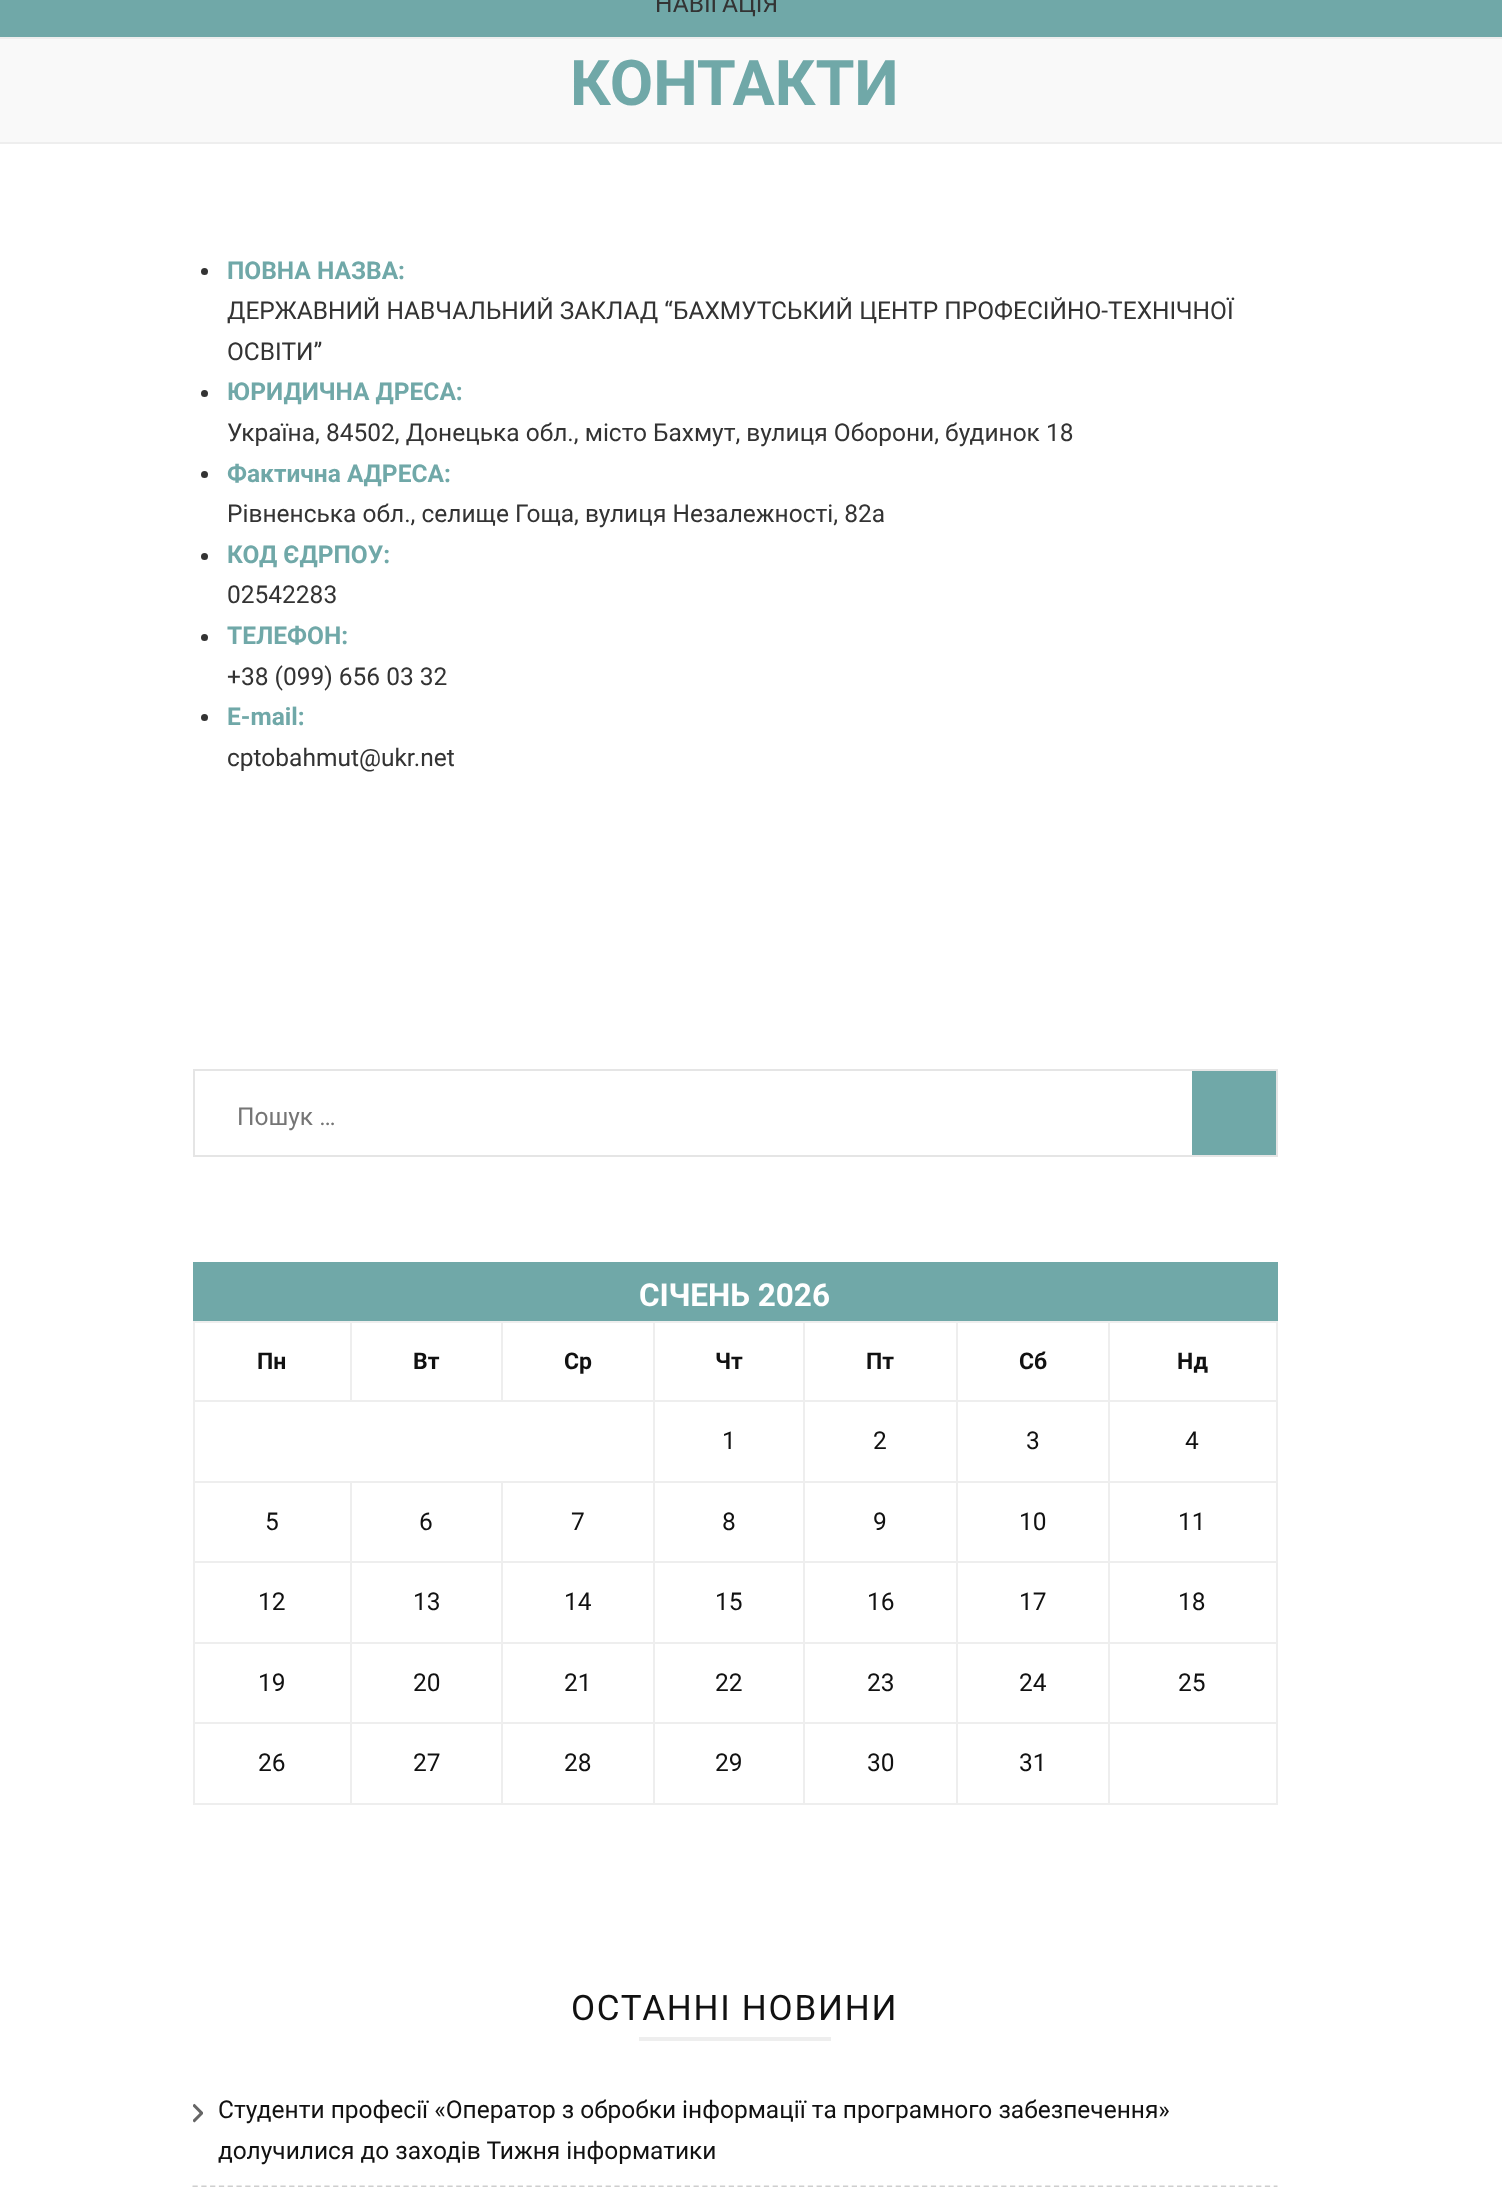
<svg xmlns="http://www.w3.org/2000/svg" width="1502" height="2187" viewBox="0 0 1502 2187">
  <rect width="100%" height="100%" fill="#ffffff"/>
  <rect x="0" y="0" width="1502" height="37" fill="#70a8a8"/>
  <rect x="0" y="37" width="1502" height="2" fill="#eeeeee"/>
  <text x="655" y="12" font-family="Roboto" font-size="24.5" fill="#333333">НАВІГАЦІЯ</text>
  <rect x="0" y="39" width="1502" height="103" fill="#f9f9f9"/>
  <rect x="0" y="142" width="1502" height="2" fill="#eeeeee"/>
  <text x="570" y="105" font-family="Roboto" font-size="63" font-weight="bold" fill="#70a8a8">КОНТАКТИ</text>
  <circle cx="204.5" cy="271.5" r="3.5" fill="#333333"/>
  <text x="227" y="279" font-family="Roboto" font-size="24.5" font-weight="bold" fill="#70a8a8">ПОВНА НАЗВА:</text>
  <text x="227" y="319" font-family="Roboto" font-size="24.5" fill="#333333">ДЕРЖАВНИЙ НАВЧАЛЬНИЙ ЗАКЛАД “БАХМУТСЬКИЙ ЦЕНТР ПРОФЕСІЙНО-ТЕХНІЧНОЇ</text>
  <text x="227" y="360" font-family="Roboto" font-size="24.5" fill="#333333">ОСВІТИ”</text>
  <circle cx="204.5" cy="393.5" r="3.5" fill="#333333"/>
  <text x="227" y="400" font-family="Roboto" font-size="24.5" font-weight="bold" fill="#70a8a8">ЮРИДИЧНА ДРЕСА:</text>
  <text x="227" y="441" font-family="Roboto" font-size="24.5" fill="#333333">Україна, 84502, Донецька обл., місто Бахмут, вулиця Оборони, будинок 18</text>
  <circle cx="204.5" cy="474.5" r="3.5" fill="#333333"/>
  <text x="227" y="482" font-family="Roboto" font-size="24.5" font-weight="bold" fill="#70a8a8">Фактична АДРЕСА:</text>
  <text x="227" y="522" font-family="Roboto" font-size="24.5" fill="#333333">Рівненська обл., селище Гоща, вулиця Незалежності, 82а</text>
  <circle cx="204.5" cy="556.5" r="3.5" fill="#333333"/>
  <text x="227" y="563" font-family="Roboto" font-size="24.5" font-weight="bold" fill="#70a8a8">КОД ЄДРПОУ:</text>
  <text x="227" y="603" font-family="Roboto" font-size="24.5" fill="#333333">02542283</text>
  <circle cx="204.5" cy="637.5" r="3.5" fill="#333333"/>
  <text x="227" y="644" font-family="Roboto" font-size="24.5" font-weight="bold" fill="#70a8a8">ТЕЛЕФОН:</text>
  <text x="227" y="685" font-family="Roboto" font-size="24.5" fill="#333333">+38 (099) 656 03 32</text>
  <circle cx="204.5" cy="717.5" r="3.5" fill="#333333"/>
  <text x="227" y="725" font-family="Roboto" font-size="24.5" font-weight="bold" fill="#70a8a8">E-mail:</text>
  <text x="227" y="766" font-family="Roboto" font-size="24.5" fill="#333333">cptobahmut@ukr.net</text>
  <rect x="194" y="1070" width="1083" height="86" fill="none" stroke="#e5e5e5" stroke-width="2"/>
  <text x="237" y="1125" font-family="Roboto" font-size="24.5" fill="#757575">Пошук …</text>
  <rect x="1192" y="1071" width="84" height="84" fill="#70a8a8"/>
  <rect x="193" y="1262" width="1085" height="59" fill="#70a8a8"/>
  <text x="639" y="1306" font-family="Roboto" font-size="31.5" font-weight="bold" fill="#ffffff">СІЧЕНЬ 2026</text>
  <rect x="1108" y="1321" width="170" height="2" fill="#eeeeee"/>
  <rect x="1108" y="1400" width="170" height="2" fill="#eeeeee"/>
  <rect x="1108" y="1481" width="170" height="2" fill="#eeeeee"/>
  <rect x="1108" y="1561" width="170" height="2" fill="#eeeeee"/>
  <rect x="1108" y="1642" width="170" height="2" fill="#eeeeee"/>
  <rect x="1108" y="1722" width="170" height="2" fill="#eeeeee"/>
  <rect x="1276" y="1722" width="2" height="82" fill="#eeeeee"/>
  <rect x="1108" y="1803" width="170" height="2" fill="#eeeeee"/>
  <rect x="1108" y="1722" width="2" height="82" fill="#eeeeee"/>
  <rect x="956" y="1722" width="154" height="2" fill="#eeeeee"/>
  <rect x="1108" y="1642" width="2" height="82" fill="#eeeeee"/>
  <rect x="956" y="1642" width="154" height="2" fill="#eeeeee"/>
  <rect x="1108" y="1561" width="2" height="82" fill="#eeeeee"/>
  <rect x="956" y="1561" width="154" height="2" fill="#eeeeee"/>
  <rect x="1108" y="1481" width="2" height="82" fill="#eeeeee"/>
  <rect x="956" y="1481" width="154" height="2" fill="#eeeeee"/>
  <rect x="1108" y="1400" width="2" height="82" fill="#eeeeee"/>
  <rect x="956" y="1400" width="154" height="2" fill="#eeeeee"/>
  <rect x="1108" y="1321" width="2" height="81" fill="#eeeeee"/>
  <rect x="956" y="1321" width="154" height="2" fill="#eeeeee"/>
  <rect x="956" y="1803" width="154" height="2" fill="#eeeeee"/>
  <rect x="956" y="1722" width="2" height="82" fill="#eeeeee"/>
  <rect x="803" y="1722" width="154" height="2" fill="#eeeeee"/>
  <rect x="956" y="1642" width="2" height="82" fill="#eeeeee"/>
  <rect x="803" y="1642" width="154" height="2" fill="#eeeeee"/>
  <rect x="956" y="1561" width="2" height="82" fill="#eeeeee"/>
  <rect x="803" y="1561" width="154" height="2" fill="#eeeeee"/>
  <rect x="956" y="1481" width="2" height="82" fill="#eeeeee"/>
  <rect x="803" y="1481" width="154" height="2" fill="#eeeeee"/>
  <rect x="956" y="1400" width="2" height="82" fill="#eeeeee"/>
  <rect x="803" y="1400" width="154" height="2" fill="#eeeeee"/>
  <rect x="956" y="1321" width="2" height="81" fill="#eeeeee"/>
  <rect x="803" y="1321" width="154" height="2" fill="#eeeeee"/>
  <rect x="803" y="1803" width="154" height="2" fill="#eeeeee"/>
  <rect x="803" y="1722" width="2" height="82" fill="#eeeeee"/>
  <rect x="653" y="1722" width="152" height="2" fill="#eeeeee"/>
  <rect x="803" y="1642" width="2" height="82" fill="#eeeeee"/>
  <rect x="653" y="1642" width="152" height="2" fill="#eeeeee"/>
  <rect x="803" y="1561" width="2" height="82" fill="#eeeeee"/>
  <rect x="653" y="1561" width="152" height="2" fill="#eeeeee"/>
  <rect x="803" y="1481" width="2" height="82" fill="#eeeeee"/>
  <rect x="653" y="1481" width="152" height="2" fill="#eeeeee"/>
  <rect x="803" y="1400" width="2" height="82" fill="#eeeeee"/>
  <rect x="653" y="1400" width="152" height="2" fill="#eeeeee"/>
  <rect x="803" y="1321" width="2" height="81" fill="#eeeeee"/>
  <rect x="653" y="1321" width="152" height="2" fill="#eeeeee"/>
  <rect x="653" y="1803" width="152" height="2" fill="#eeeeee"/>
  <rect x="653" y="1722" width="2" height="82" fill="#eeeeee"/>
  <rect x="501" y="1722" width="154" height="2" fill="#eeeeee"/>
  <rect x="653" y="1642" width="2" height="82" fill="#eeeeee"/>
  <rect x="501" y="1642" width="154" height="2" fill="#eeeeee"/>
  <rect x="653" y="1561" width="2" height="82" fill="#eeeeee"/>
  <rect x="501" y="1561" width="154" height="2" fill="#eeeeee"/>
  <rect x="653" y="1481" width="2" height="82" fill="#eeeeee"/>
  <rect x="501" y="1481" width="154" height="2" fill="#eeeeee"/>
  <rect x="653" y="1400" width="2" height="82" fill="#eeeeee"/>
  <rect x="193" y="1400" width="462" height="2" fill="#eeeeee"/>
  <rect x="653" y="1321" width="2" height="81" fill="#eeeeee"/>
  <rect x="501" y="1321" width="154" height="2" fill="#eeeeee"/>
  <rect x="501" y="1321" width="2" height="81" fill="#eeeeee"/>
  <rect x="350" y="1321" width="152" height="2" fill="#eeeeee"/>
  <rect x="350" y="1321" width="2" height="81" fill="#eeeeee"/>
  <rect x="193" y="1321" width="159" height="2" fill="#eeeeee"/>
  <rect x="501" y="1803" width="154" height="2" fill="#eeeeee"/>
  <rect x="501" y="1722" width="2" height="82" fill="#eeeeee"/>
  <rect x="350" y="1722" width="152" height="2" fill="#eeeeee"/>
  <rect x="501" y="1642" width="2" height="82" fill="#eeeeee"/>
  <rect x="350" y="1642" width="152" height="2" fill="#eeeeee"/>
  <rect x="501" y="1561" width="2" height="82" fill="#eeeeee"/>
  <rect x="350" y="1561" width="152" height="2" fill="#eeeeee"/>
  <rect x="501" y="1481" width="2" height="82" fill="#eeeeee"/>
  <rect x="350" y="1481" width="152" height="2" fill="#eeeeee"/>
  <rect x="350" y="1803" width="152" height="2" fill="#eeeeee"/>
  <rect x="350" y="1722" width="2" height="82" fill="#eeeeee"/>
  <rect x="193" y="1722" width="159" height="2" fill="#eeeeee"/>
  <rect x="350" y="1642" width="2" height="82" fill="#eeeeee"/>
  <rect x="193" y="1642" width="159" height="2" fill="#eeeeee"/>
  <rect x="350" y="1561" width="2" height="82" fill="#eeeeee"/>
  <rect x="193" y="1561" width="159" height="2" fill="#eeeeee"/>
  <rect x="350" y="1481" width="2" height="82" fill="#eeeeee"/>
  <rect x="193" y="1481" width="159" height="2" fill="#eeeeee"/>
  <rect x="193" y="1803" width="159" height="2" fill="#eeeeee"/>
  <rect x="193" y="1722" width="2" height="82" fill="#eeeeee"/>
  <rect x="193" y="1642" width="2" height="82" fill="#eeeeee"/>
  <rect x="193" y="1561" width="2" height="82" fill="#eeeeee"/>
  <rect x="193" y="1481" width="2" height="82" fill="#eeeeee"/>
  <rect x="193" y="1400" width="2" height="82" fill="#eeeeee"/>
  <rect x="193" y="1321" width="2" height="81" fill="#eeeeee"/>
  <text x="257" y="1369" font-family="Roboto" font-size="23" font-weight="bold" fill="#111111">Пн</text>
  <text x="413" y="1369" font-family="Roboto" font-size="23" font-weight="bold" fill="#111111">Вт</text>
  <text x="564" y="1369" font-family="Roboto" font-size="23" font-weight="bold" fill="#111111">Ср</text>
  <text x="715" y="1369" font-family="Roboto" font-size="23" font-weight="bold" fill="#111111">Чт</text>
  <text x="866" y="1369" font-family="Roboto" font-size="23" font-weight="bold" fill="#111111">Пт</text>
  <text x="1019" y="1369" font-family="Roboto" font-size="23" font-weight="bold" fill="#111111">Сб</text>
  <rect x="1276" y="1642" width="2" height="82" fill="#eeeeee"/>
  <rect x="1276" y="1561" width="2" height="82" fill="#eeeeee"/>
  <rect x="1276" y="1481" width="2" height="82" fill="#eeeeee"/>
  <rect x="1276" y="1400" width="2" height="82" fill="#eeeeee"/>
  <rect x="1276" y="1321" width="2" height="81" fill="#eeeeee"/>
  <text x="1177" y="1369" font-family="Roboto" font-size="23" font-weight="bold" fill="#111111">Нд</text>
  <text x="722" y="1449" font-family="Roboto" font-size="24.5" fill="#111111">1</text>
  <text x="873" y="1449" font-family="Roboto" font-size="24.5" fill="#111111">2</text>
  <text x="1026" y="1449" font-family="Roboto" font-size="24.5" fill="#111111">3</text>
  <text x="1185" y="1449" font-family="Roboto" font-size="24.5" fill="#111111">4</text>
  <text x="265" y="1530" font-family="Roboto" font-size="24.5" fill="#111111">5</text>
  <text x="419" y="1530" font-family="Roboto" font-size="24.5" fill="#111111">6</text>
  <text x="571" y="1530" font-family="Roboto" font-size="24.5" fill="#111111">7</text>
  <text x="722" y="1530" font-family="Roboto" font-size="24.5" fill="#111111">8</text>
  <text x="873" y="1530" font-family="Roboto" font-size="24.5" fill="#111111">9</text>
  <text x="1019" y="1530" font-family="Roboto" font-size="24.5" fill="#111111">10</text>
  <text x="1178" y="1530" font-family="Roboto" font-size="24.5" fill="#111111">11</text>
  <text x="258" y="1610" font-family="Roboto" font-size="24.5" fill="#111111">12</text>
  <text x="413" y="1610" font-family="Roboto" font-size="24.5" fill="#111111">13</text>
  <text x="564" y="1610" font-family="Roboto" font-size="24.5" fill="#111111">14</text>
  <text x="715" y="1610" font-family="Roboto" font-size="24.5" fill="#111111">15</text>
  <text x="867" y="1610" font-family="Roboto" font-size="24.5" fill="#111111">16</text>
  <text x="1019" y="1610" font-family="Roboto" font-size="24.5" fill="#111111">17</text>
  <text x="1178" y="1610" font-family="Roboto" font-size="24.5" fill="#111111">18</text>
  <text x="258" y="1691" font-family="Roboto" font-size="24.5" fill="#111111">19</text>
  <text x="413" y="1691" font-family="Roboto" font-size="24.5" fill="#111111">20</text>
  <text x="564" y="1691" font-family="Roboto" font-size="24.5" fill="#111111">21</text>
  <text x="715" y="1691" font-family="Roboto" font-size="24.5" fill="#111111">22</text>
  <text x="867" y="1691" font-family="Roboto" font-size="24.5" fill="#111111">23</text>
  <text x="1019" y="1691" font-family="Roboto" font-size="24.5" fill="#111111">24</text>
  <text x="1178" y="1691" font-family="Roboto" font-size="24.5" fill="#111111">25</text>
  <text x="258" y="1771" font-family="Roboto" font-size="24.5" fill="#111111">26</text>
  <text x="413" y="1771" font-family="Roboto" font-size="24.5" fill="#111111">27</text>
  <text x="564" y="1771" font-family="Roboto" font-size="24.5" fill="#111111">28</text>
  <text x="715" y="1771" font-family="Roboto" font-size="24.5" fill="#111111">29</text>
  <text x="867" y="1771" font-family="Roboto" font-size="24.5" fill="#111111">30</text>
  <text x="1019" y="1771" font-family="Roboto" font-size="24.5" fill="#111111">31</text>
  <text x="571" y="2020" font-family="Roboto" font-size="35" letter-spacing="1.75" fill="#111111">ОСТАННІ НОВИНИ</text>
  <rect x="639" y="2037" width="192" height="4" fill="#eeeeee"/>
  <path d="M192.5 2186.5H1277.5" fill="none" stroke="#cecece" stroke-width="1.8" stroke-dasharray="5.25 3.54"/>
  <image x="193" y="2103" width="10" height="20" href="img1.png"/>
  <text x="218" y="2118" font-family="Roboto" font-size="24.5" fill="#111111">Студенти професії «Оператор з обробки інформації та програмного забезпечення»</text>
  <text x="218" y="2159" font-family="Roboto" font-size="24.5" fill="#111111">долучилися до заходів Тижня інформатики</text>
</svg>
